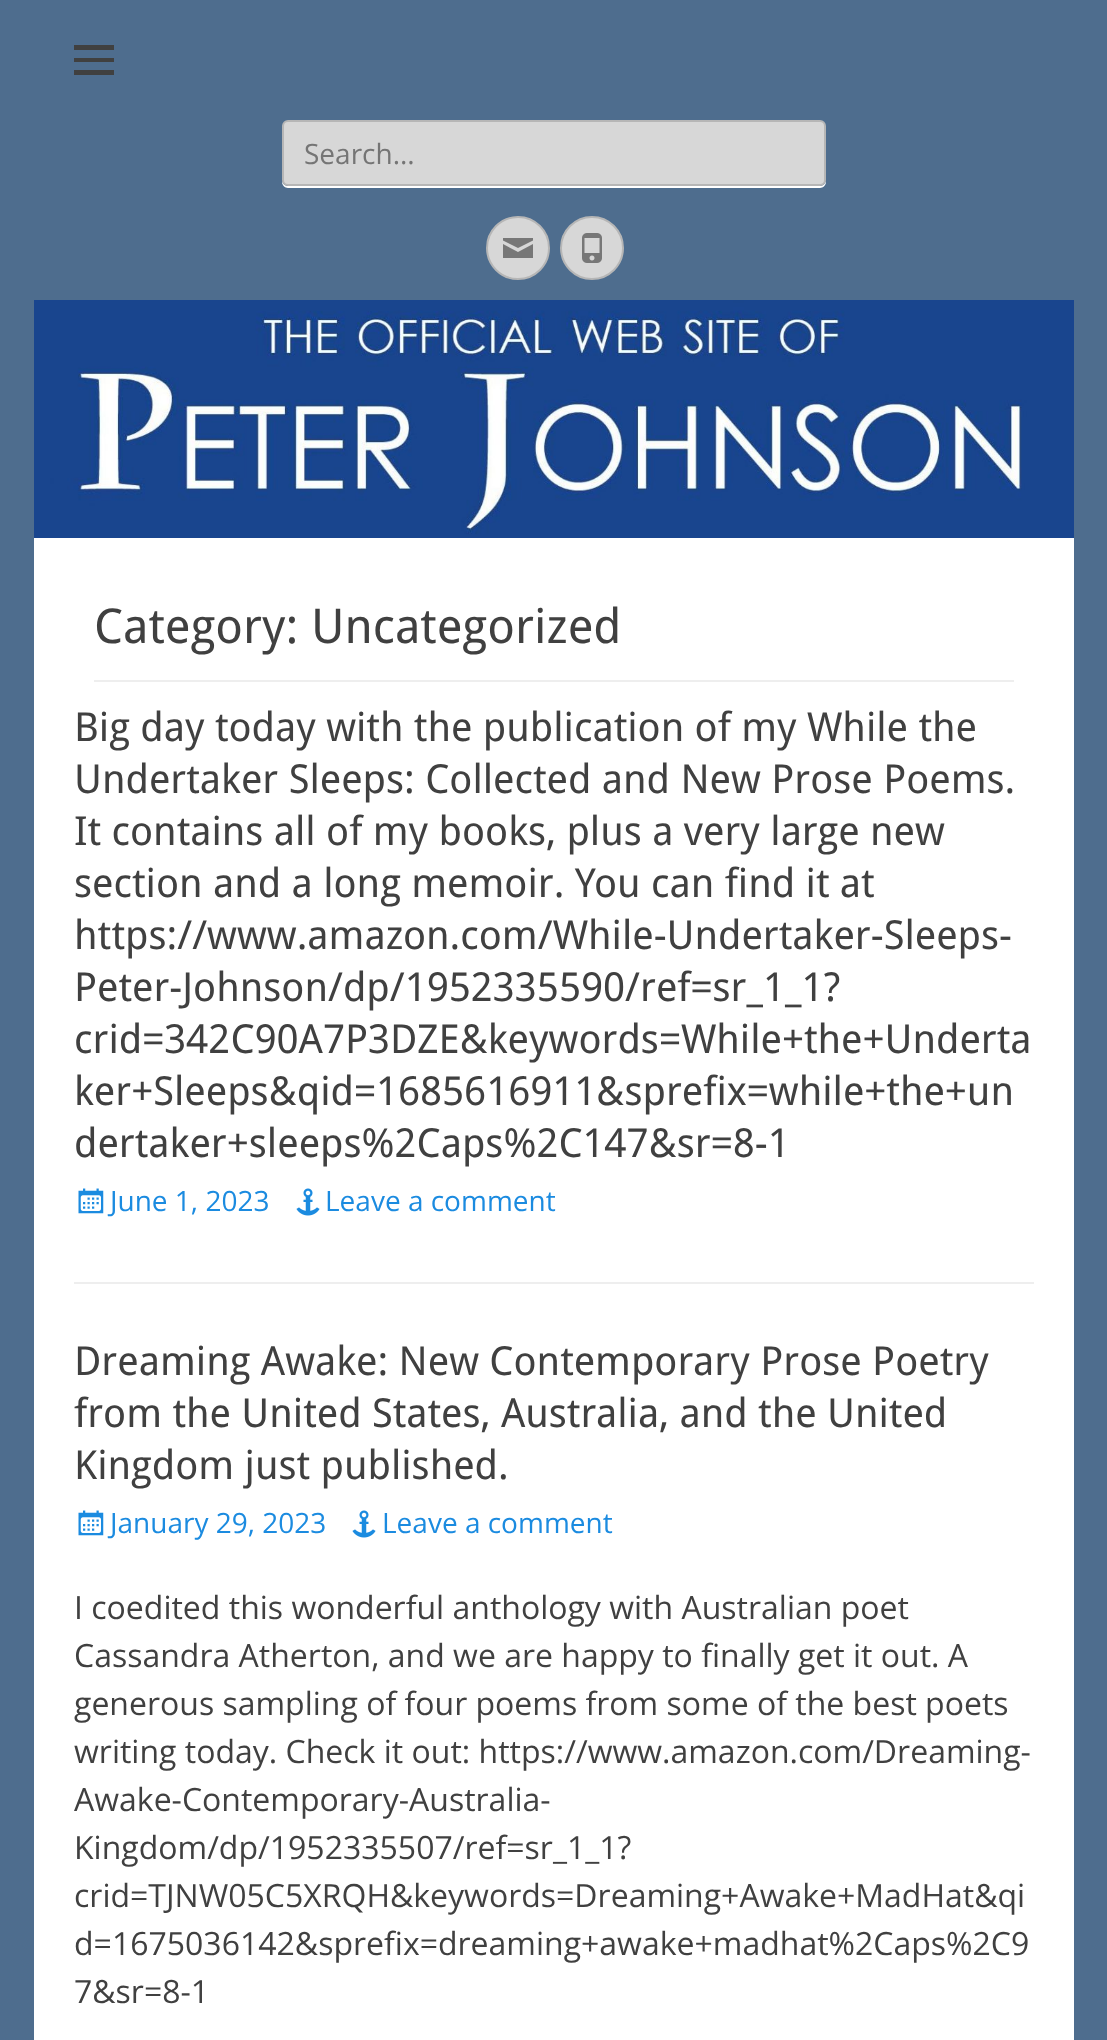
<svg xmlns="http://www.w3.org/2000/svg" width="1107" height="2040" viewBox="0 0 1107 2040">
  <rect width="100%" height="100%" fill="#4e6d8e"/>
  <path d="M74 75V70H114V75ZM74 45H114V50H74ZM74 62V58H114V62Z" fill="#404040"/>
  <path d="M282 180V182C282 185 285 188 288 188H820C823 188 826 185 826 182V180C826 183 823 186 820 186H288C285 186 282 183 282 180Z" fill="#ffffff"/>
  <rect x="283" y="121" width="542" height="64" rx="5" fill="#d7d7d7" stroke="#b6b6b6" stroke-width="2"/>
  <text x="304" y="164" font-family="Open Sans" font-size="28" fill="#757575">Search...</text>
  <circle cx="518" cy="248" r="31" fill="#d7d7d7" stroke="#b6b6b6" stroke-width="2"/>
  <path d="M503 238H533V240.5L518 248L503 240.5ZM503 244L518 252L533 244V258H503Z" fill="#777777"/>
  <circle cx="592" cy="248" r="31" fill="#d7d7d7" stroke="#b6b6b6" stroke-width="2"/>
  <image x="582" y="233" width="20" height="30" href="img1.png"/>
  <image x="34" y="300" width="1040" height="238" href="img2.png"/>
  <rect x="34" y="538" width="1040" height="1502" fill="#ffffff"/>
  <rect x="94" y="680" width="920" height="2" fill="#eeeeee"/>
  <text x="94" y="643" font-family="Droid Sans" font-size="48" fill="#404040">Category: Uncategorized</text>
  <rect x="74" y="1282" width="960" height="2" fill="#eeeeee"/>
  <text x="74" y="741" font-family="Droid Sans" font-size="40" fill="#404040">Big day today with the publication of my While the</text>
  <text x="74" y="793" font-family="Droid Sans" font-size="40" fill="#404040">Undertaker Sleeps: Collected and New Prose Poems.</text>
  <text x="74" y="845" font-family="Droid Sans" font-size="40" fill="#404040">It contains all of my books, plus a very large new</text>
  <text x="74" y="897" font-family="Droid Sans" font-size="40" fill="#404040">section and a long memoir. You can find it at</text>
  <text x="74" y="949" font-family="Droid Sans" font-size="40" fill="#404040">https://www.amazon.com/While-Undertaker-Sleeps-</text>
  <text x="74" y="1001" font-family="Droid Sans" font-size="40" fill="#404040">Peter-Johnson/dp/1952335590/ref=sr_1_1?</text>
  <text x="74" y="1053" font-family="Droid Sans" font-size="40" fill="#404040">crid=342C90A7P3DZE&amp;keywords=While+the+Underta</text>
  <text x="74" y="1105" font-family="Droid Sans" font-size="40" fill="#404040">ker+Sleeps&amp;qid=1685616911&amp;sprefix=while+the+un</text>
  <text x="74" y="1157" font-family="Droid Sans" font-size="40" fill="#404040">dertaker+sleeps%2Caps%2C147&amp;sr=8-1</text>
  <image x="78" y="1188" width="26" height="26" href="img3.png"/>
  <text x="110" y="1211" font-family="Open Sans" font-size="28" fill="#1b8be0">June 1, 2023</text>
  <image x="296" y="1188" width="24" height="28" href="img4.png"/>
  <text x="325" y="1211" font-family="Open Sans" font-size="28" fill="#1b8be0">Leave a comment</text>
  <text x="74" y="1375" font-family="Droid Sans" font-size="40" fill="#404040">Dreaming Awake: New Contemporary Prose Poetry</text>
  <text x="74" y="1427" font-family="Droid Sans" font-size="40" fill="#404040">from the United States, Australia, and the United</text>
  <text x="74" y="1479" font-family="Droid Sans" font-size="40" fill="#404040">Kingdom just published.</text>
  <image x="78" y="1510" width="26" height="26" href="img3.png"/>
  <text x="110" y="1533" font-family="Open Sans" font-size="28" fill="#1b8be0">January 29, 2023</text>
  <image x="352" y="1510" width="24" height="28" href="img4.png"/>
  <text x="382" y="1533" font-family="Open Sans" font-size="28" fill="#1b8be0">Leave a comment</text>
  <text x="74" y="1619" font-family="Open Sans" font-size="32" fill="#404040">I coedited this wonderful anthology with Australian poet</text>
  <text x="74" y="1667" font-family="Open Sans" font-size="32" fill="#404040">Cassandra Atherton, and we are happy to finally get it out. A</text>
  <text x="74" y="1715" font-family="Open Sans" font-size="32" fill="#404040">generous sampling of four poems from some of the best poets</text>
  <text x="74" y="1763" font-family="Open Sans" font-size="32" fill="#404040">writing today. Check it out: https://www.amazon.com/Dreaming-</text>
  <text x="74" y="1811" font-family="Open Sans" font-size="32" fill="#404040">Awake-Contemporary-Australia-</text>
  <text x="74" y="1859" font-family="Open Sans" font-size="32" fill="#404040">Kingdom/dp/1952335507/ref=sr_1_1?</text>
  <text x="74" y="1907" font-family="Open Sans" font-size="32" fill="#404040">crid=TJNW05C5XRQH&amp;keywords=Dreaming+Awake+MadHat&amp;qi</text>
  <text x="74" y="1955" font-family="Open Sans" font-size="32" fill="#404040">d=1675036142&amp;sprefix=dreaming+awake+madhat%2Caps%2C9</text>
  <text x="74" y="2003" font-family="Open Sans" font-size="32" fill="#404040">7&amp;sr=8-1</text>
</svg>
